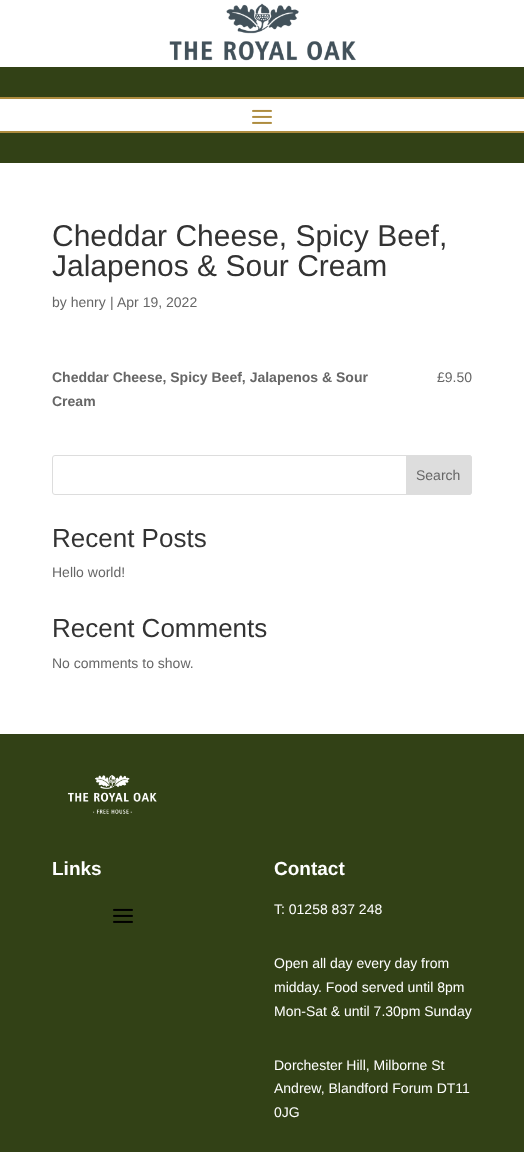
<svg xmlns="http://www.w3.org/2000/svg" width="524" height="1152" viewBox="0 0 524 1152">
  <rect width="100%" height="100%" fill="#ffffff"/>
  <image x="169" y="3" width="187" height="58" href="img1.png"/>
  <rect x="0" y="67" width="524" height="96" fill="#324116"/>
  <rect x="0" y="99" width="524" height="32" fill="#ffffff"/>
  <rect x="0" y="97" width="524" height="2" fill="#ae8c3f"/>
  <rect x="0" y="131" width="524" height="2" fill="#ae8c3f"/>
  <image x="252" y="109" width="20" height="15" href="img2.png"/>
  <text x="52" y="246" font-family="Liberation Sans" font-size="30" fill="#333333">Cheddar Cheese, Spicy Beef,</text>
  <text x="52" y="276" font-family="Liberation Sans" font-size="30" fill="#333333">Jalapenos &amp; Sour Cream</text>
  <text x="52" y="307" font-family="Liberation Sans" font-size="14" fill="#666666">by henry</text>
  <text x="110" y="307" font-family="Liberation Sans" font-size="14" fill="#666666">|</text>
  <text x="117" y="307" font-family="Liberation Sans" font-size="14" fill="#666666">Apr 19, 2022</text>
  <text x="52" y="382" font-family="Liberation Sans" font-size="14" font-weight="bold" fill="#666666">Cheddar Cheese, Spicy Beef, Jalapenos &amp; Sour</text>
  <text x="52" y="406" font-family="Liberation Sans" font-size="14" font-weight="bold" fill="#666666">Cream</text>
  <text x="437" y="382" font-family="Liberation Sans" font-size="14" fill="#666666">£9.50</text>
  <rect x="52.5" y="455.5" width="419" height="39" rx="2.5" fill="none" stroke="#dddddd"/>
  <path d="M406.5 455.5H469C470.5 455.5 471.5 456.5 471.5 458V492C471.5 493.5 470.5 494.5 469 494.5H406.5Z" fill="#dddddd" stroke="#dddddd"/>
  <text x="416" y="480" font-family="Liberation Sans" font-size="14" fill="#666666">Search</text>
  <text x="52" y="547" font-family="Liberation Sans" font-size="26" fill="#333333">Recent Posts</text>
  <text x="52" y="577" font-family="Liberation Sans" font-size="14" fill="#666666">Hello world!</text>
  <text x="52" y="637" font-family="Liberation Sans" font-size="26" fill="#333333">Recent Comments</text>
  <text x="52" y="668" font-family="Liberation Sans" font-size="14" fill="#666666">No comments to show.</text>
  <rect x="0" y="734" width="524" height="418" fill="#324116"/>
  <image x="67" y="775" width="90" height="39" href="img3.png"/>
  <text x="52" y="875" font-family="Liberation Sans" font-size="19" font-weight="bold" fill="#ffffff">Links</text>
  <image x="113" y="908" width="20" height="15" href="img4.png"/>
  <text x="274" y="875" font-family="Liberation Sans" font-size="19" font-weight="bold" fill="#ffffff">Contact</text>
  <text x="274" y="914" font-family="Liberation Sans" font-size="14" fill="#ffffff">T: 01258 837 248</text>
  <text x="274" y="968" font-family="Liberation Sans" font-size="14" fill="#ffffff">Open all day every day from</text>
  <text x="274" y="992" font-family="Liberation Sans" font-size="14" fill="#ffffff">midday. Food served until 8pm</text>
  <text x="274" y="1016" font-family="Liberation Sans" font-size="14" fill="#ffffff">Mon-Sat &amp; until 7.30pm Sunday</text>
  <text x="274" y="1070" font-family="Liberation Sans" font-size="14" fill="#ffffff">Dorchester Hill, Milborne St</text>
  <text x="274" y="1093" font-family="Liberation Sans" font-size="14" fill="#ffffff">Andrew, Blandford Forum DT11</text>
  <text x="274" y="1117" font-family="Liberation Sans" font-size="14" fill="#ffffff">0JG</text>
</svg>
